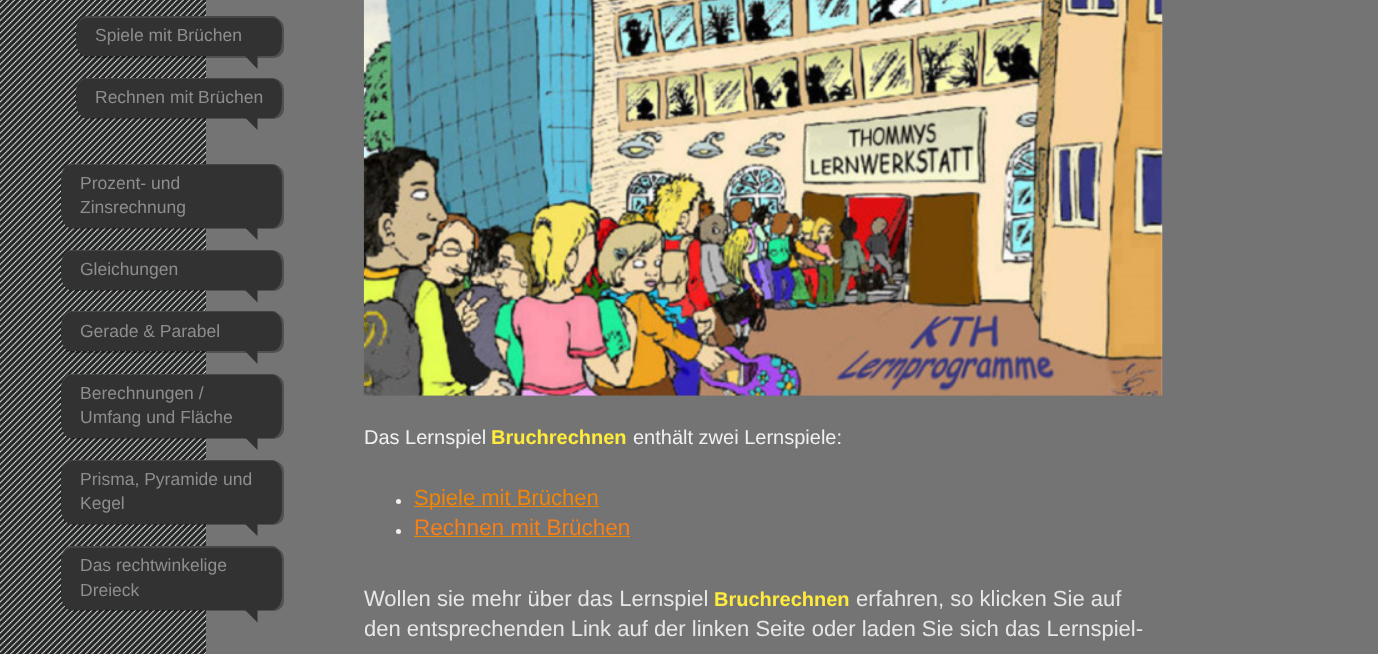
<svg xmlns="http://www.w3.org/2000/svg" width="1378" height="654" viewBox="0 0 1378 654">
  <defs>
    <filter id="blur1" x="-50%" y="-200%" width="200%" height="500%"><feGaussianBlur stdDeviation="0.5"/></filter>
  </defs>
  <rect width="100%" height="100%" fill="#242525"/>
  <image x="0" y="0" width="206" height="654" href="img1.png"/>
  <rect x="206" y="0" width="1172" height="654" fill="#747474"/>
  <rect x="78" y="18" width="206" height="40" rx="10" fill="#000000" fill-opacity="0.3" filter="url(#blur1)"/>
  <path d="M86 16H272C278 16 282 23 282 31V41C282 50 278 56 272 56H86C81 56 76 50 76 41V31C76 23 81 16 86 16Z" fill="#333232"/>
  <path d="M86 18H272C278 18 282 24 282 32V42L281 49C282 47 282 44 282 41V31C282 23 278 16 272 16H86C82 16 78 21 77 27C78 22 82 18 86 18Z" fill="#ffffff" fill-opacity="0.1"/>
  <text x="95" y="41" font-family="Liberation Sans" font-size="17.5" fill="#8f8d8d">Spiele mit Brüchen</text>
  <path d="M245 56H257.5V69Z" fill="#333232"/>
  <rect x="78" y="79" width="206" height="40" rx="10" fill="#000000" fill-opacity="0.3" filter="url(#blur1)"/>
  <path d="M86 78H272C278 78 282 84 282 92V102C282 111 278 118 272 118H86C81 118 76 111 76 102V92C76 84 81 78 86 78Z" fill="#333232"/>
  <path d="M86 79H272C278 79 282 85 282 94V104L281 110C282 107 282 105 282 102V92C282 84 278 78 272 78H86C81 78 77 83 76 89C78 83 82 79 86 79Z" fill="#ffffff" fill-opacity="0.1"/>
  <text x="95" y="103" font-family="Liberation Sans" font-size="17.5" fill="#8f8d8d">Rechnen mit Brüchen</text>
  <path d="M245 117.5H257.5V130Z" fill="#333232"/>
  <rect x="63" y="165" width="221" height="64" rx="10" fill="#000000" fill-opacity="0.3" filter="url(#blur1)"/>
  <path d="M71 164H272C278 164 282 170 282 179V212C282 221 278 228 272 228H71C66 228 61 221 61 212V179C61 170 66 164 71 164Z" fill="#333232"/>
  <path d="M71 165H272C278 165 282 172 282 180V214L281 220C282 217 282 215 282 212V179C282 170 278 164 272 164H71C66 164 62 169 61 176C63 170 67 165 71 165Z" fill="#ffffff" fill-opacity="0.1"/>
  <text x="80" y="189" font-family="Liberation Sans" font-size="17.5" fill="#8f8d8d">Prozent- und</text>
  <text x="80" y="213" font-family="Liberation Sans" font-size="17.5" fill="#8f8d8d">Zinsrechnung</text>
  <path d="M245 227.5H257.5V240Z" fill="#333232"/>
  <rect x="63" y="251" width="221" height="40" rx="10" fill="#000000" fill-opacity="0.3" filter="url(#blur1)"/>
  <path d="M71 250H272C278 250 282 257 282 265V275C282 283 278 290 272 290H71C66 290 61 283 61 275V265C61 257 66 250 71 250Z" fill="#333232"/>
  <path d="M71 251H272C278 251 282 258 282 266V276L281 282C282 280 282 278 282 275V265C282 257 278 250 272 250H71C67 250 63 255 62 262C63 256 67 251 71 251Z" fill="#ffffff" fill-opacity="0.1"/>
  <text x="80" y="275" font-family="Liberation Sans" font-size="17.5" fill="#8f8d8d">Gleichungen</text>
  <path d="M245 290H257.5V302.5Z" fill="#333232"/>
  <rect x="63" y="313" width="221" height="40" rx="10" fill="#000000" fill-opacity="0.3" filter="url(#blur1)"/>
  <path d="M71 311H272C278 311 282 318 282 326V336C282 345 278 351 272 351H71C66 351 61 345 61 336V326C61 318 66 311 71 311Z" fill="#333232"/>
  <path d="M71 312H272C278 312 282 319 282 328V338L281 343C282 341 282 339 282 336V326C282 318 278 311 272 311H71C66 311 62 317 61 324C63 317 67 312 71 312Z" fill="#ffffff" fill-opacity="0.1"/>
  <text x="80" y="337" font-family="Liberation Sans" font-size="17.5" fill="#8f8d8d">Gerade &amp; Parabel</text>
  <path d="M245 351H257.5V364Z" fill="#333232"/>
  <rect x="63" y="375" width="221" height="64" rx="10" fill="#000000" fill-opacity="0.3" filter="url(#blur1)"/>
  <path d="M71 374H272C278 374 282 380 282 389V422C282 431 278 438 272 438H71C66 438 61 431 61 422V389C61 380 66 374 71 374Z" fill="#333232"/>
  <path d="M71 375H272C278 375 282 382 282 390V424L281 430C282 427 282 425 282 422V389C282 380 278 374 272 374H71C66 374 62 379 61 386C63 380 67 375 71 375Z" fill="#ffffff" fill-opacity="0.1"/>
  <text x="80" y="399" font-family="Liberation Sans" font-size="17.5" fill="#8f8d8d">Berechnungen /</text>
  <text x="80" y="423" font-family="Liberation Sans" font-size="17.5" fill="#8f8d8d">Umfang und Fläche</text>
  <path d="M245 437.5H257.5V450Z" fill="#333232"/>
  <rect x="63" y="461" width="221" height="64" rx="10" fill="#000000" fill-opacity="0.3" filter="url(#blur1)"/>
  <path d="M71 460H272C278 460 282 467 282 475V509C282 517 278 524 272 524H71C66 524 61 517 61 509V475C61 467 66 460 71 460Z" fill="#333232"/>
  <path d="M71 461H272C278 461 282 468 282 476V510L281 517C282 514 282 512 282 509V475C282 467 278 460 272 460H71C67 460 63 465 62 472C63 466 67 461 71 461Z" fill="#ffffff" fill-opacity="0.1"/>
  <text x="80" y="485" font-family="Liberation Sans" font-size="17.5" fill="#8f8d8d">Prisma, Pyramide und</text>
  <text x="80" y="509" font-family="Liberation Sans" font-size="17.5" fill="#8f8d8d">Kegel</text>
  <path d="M245 524H257.5V536Z" fill="#333232"/>
  <rect x="63" y="548" width="221" height="63" rx="10" fill="#000000" fill-opacity="0.3" filter="url(#blur1)"/>
  <path d="M71 546H272C278 546 282 553 282 561V595C282 603 278 610 272 610H71C66 610 61 603 61 595V561C61 553 66 546 71 546Z" fill="#333232"/>
  <path d="M71 548H272C278 548 282 554 282 562V596L281 602C282 600 282 598 282 595V561C282 553 278 546 272 546H71C67 546 63 551 62 557C63 552 67 548 71 548Z" fill="#ffffff" fill-opacity="0.1"/>
  <text x="80" y="571" font-family="Liberation Sans" font-size="17.5" fill="#8f8d8d">Das rechtwinkelige</text>
  <text x="80" y="596" font-family="Liberation Sans" font-size="17.5" fill="#8f8d8d">Dreieck</text>
  <path d="M245 610H257.5V622.5Z" fill="#333232"/>
  <image x="363" y="0" width="800" height="396" href="img2.png"/>
  <text x="364" y="444" font-family="Liberation Sans" font-size="20" fill="#f1f1f1">Das Lernspiel</text>
  <text x="491" y="444" font-family="Liberation Sans" font-size="20" font-weight="bold" fill="#ffeb3c">Bruchrechnen</text>
  <text x="633" y="444" font-family="Liberation Sans" font-size="20" fill="#f1f1f1">enthält zwei Lernspiele:</text>
  <circle cx="398.5" cy="501.5" r="2.5" fill="#f1f1f1"/>
  <rect x="414" y="506" width="185" height="1" fill="#f28505"/>
  <text x="414" y="505" font-family="Liberation Sans" font-size="22" fill="#f28505">Spiele mit Brüchen</text>
  <circle cx="398.5" cy="531.5" r="2.5" fill="#f1f1f1"/>
  <text x="414" y="535" font-family="Liberation Sans" font-size="22.5" fill="#f57f18">Rechnen mit Brüchen</text>
  <rect x="414" y="536" width="216" height="1" fill="#f28505"/>
  <text x="364" y="606" font-family="Liberation Sans" font-size="22" fill="#e7e7e7">Wollen sie mehr über das Lernspiel</text>
  <text x="714" y="606" font-family="Liberation Sans" font-size="20" font-weight="bold" fill="#ffeb3c">Bruchrechnen</text>
  <text x="856" y="606" font-family="Liberation Sans" font-size="22" fill="#e7e7e7">erfahren, so klicken Sie auf</text>
  <text x="364" y="636" font-family="Liberation Sans" font-size="22" fill="#e7e7e7">den entsprechenden Link auf der linken Seite oder laden Sie sich das Lernspiel-</text>
</svg>
